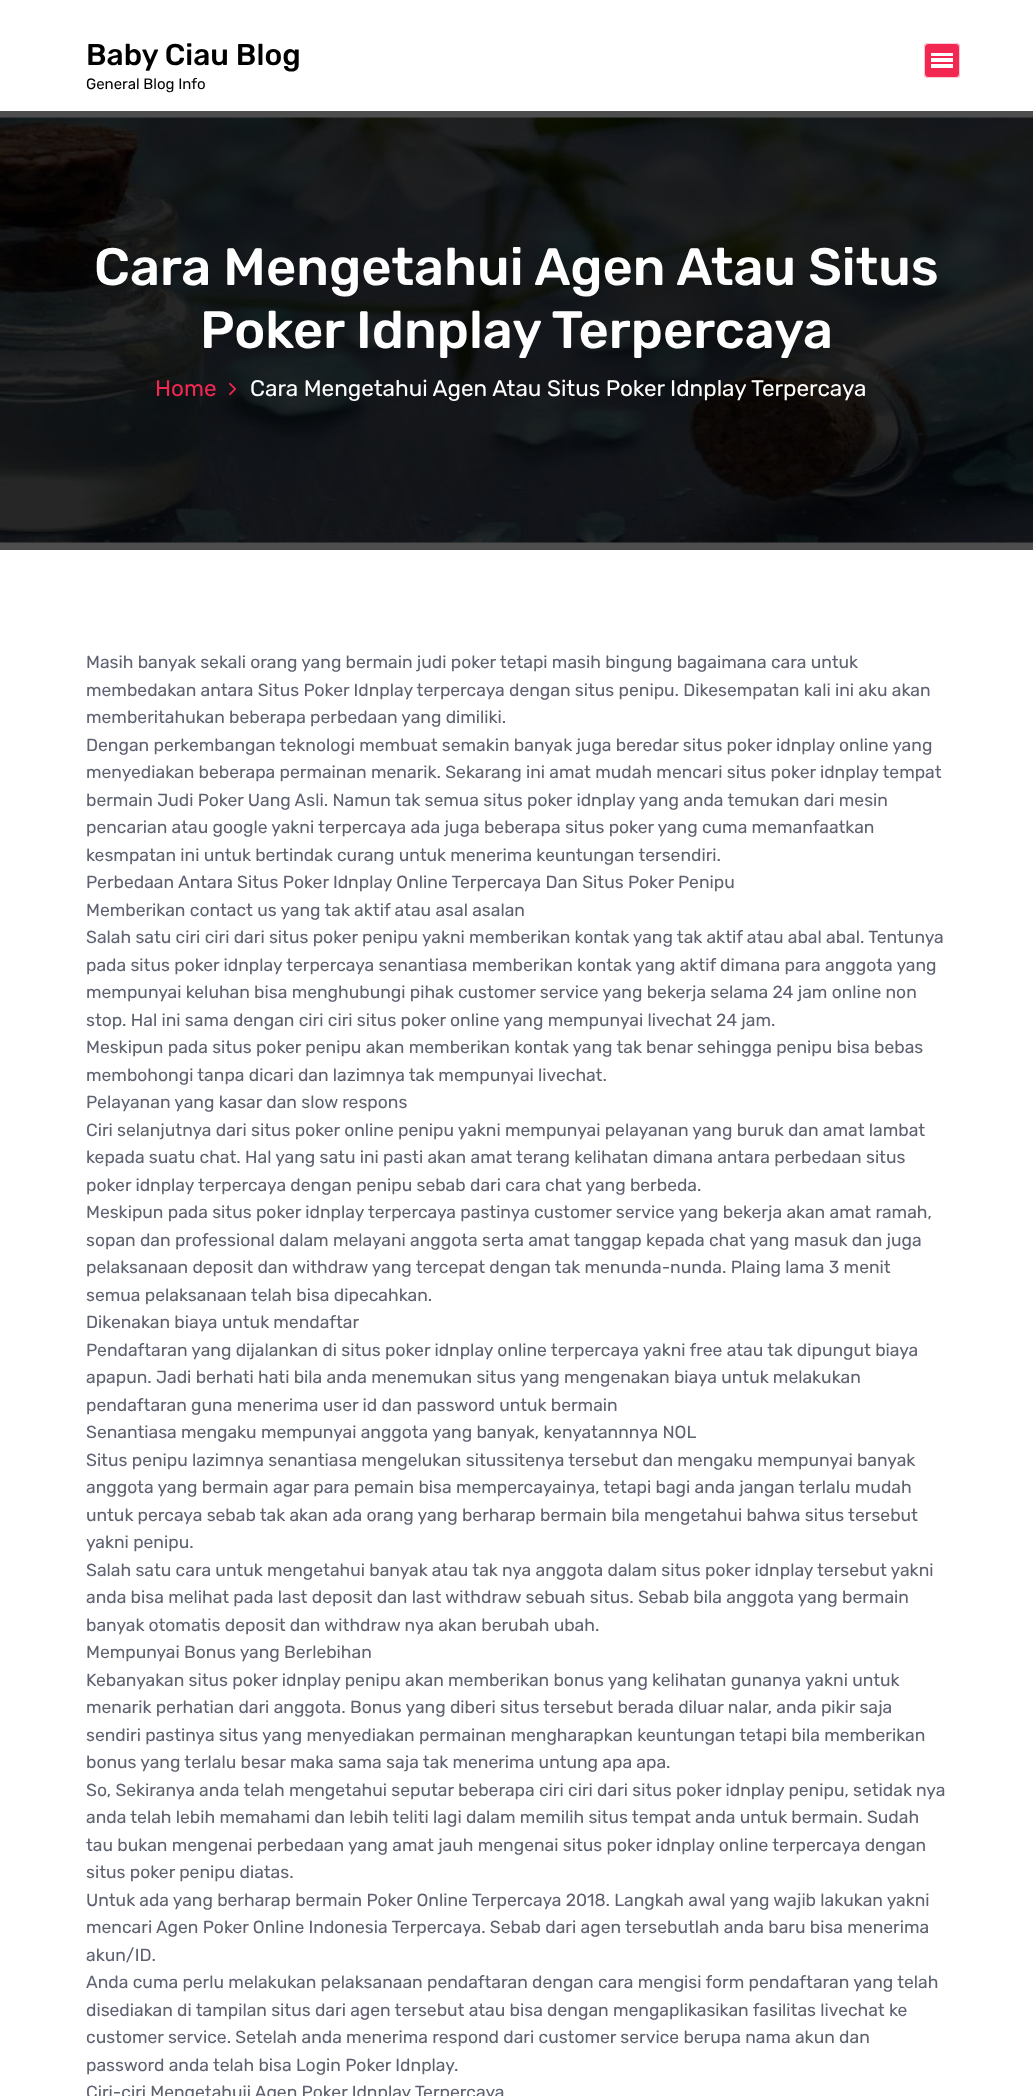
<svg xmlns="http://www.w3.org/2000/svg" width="1033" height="2096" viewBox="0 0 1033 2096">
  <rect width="100%" height="100%" fill="#ffffff"/>
  <rect x="0" y="111" width="1033" height="439" fill="#4d4d4d"/>
  <text x="86" y="65" font-family="Rubik" font-size="30" font-weight="500" fill="#000000">Baby Ciau Blog</text>
  <text x="86" y="89" font-family="Rubik" font-size="15" fill="#000000">General Blog Info</text>
  <rect x="924.5" y="43.5" width="35" height="34" rx="3.5" fill="#f22853" stroke="#ffffff"/>
  <rect x="924" y="43" width="36" height="35" rx="4" fill="#f22853" fill-opacity="0.5"/>
  <rect x="924.5" y="43.5" width="35" height="34" rx="3.5" fill="none" stroke="#ffffff" stroke-opacity="0.5"/>
  <rect x="931" y="53" width="22" height="3" fill="#ffffff"/>
  <rect x="931" y="58" width="22" height="4" fill="#ffffff"/>
  <rect x="931" y="64" width="22" height="4" fill="#ffffff"/>
  <image x="0" y="117" width="1033" height="426" href="img1.png"/>
  <text x="94" y="285" font-family="Rubik" font-size="52.5" font-weight="500" fill="#ffffff">Cara Mengetahui Agen Atau Situs</text>
  <text x="200" y="348" font-family="Rubik" font-size="52.5" font-weight="500" fill="#ffffff">Poker Idnplay Terpercaya</text>
  <text x="155" y="396" font-family="Rubik" font-size="22.5" fill="#f22853">Home</text>
  <image x="229" y="382" width="8" height="14" href="img2.png"/>
  <text x="250" y="396" font-family="Rubik" font-size="22.5" fill="#ffffff">Cara Mengetahui Agen Atau Situs Poker Idnplay Terpercaya</text>
  <text x="86" y="668" font-family="Rubik" font-size="17.5" fill="#5e6271">Masih banyak sekali orang yang bermain judi poker tetapi masih bingung bagaimana cara untuk</text>
  <text x="86" y="696" font-family="Rubik" font-size="17.5" fill="#5e6271">membedakan antara Situs Poker Idnplay terpercaya dengan situs penipu. Dikesempatan kali ini aku akan</text>
  <text x="86" y="723" font-family="Rubik" font-size="17.5" fill="#5e6271">memberitahukan beberapa perbedaan yang dimiliki.</text>
  <text x="86" y="751" font-family="Rubik" font-size="17.5" fill="#5e6271">Dengan perkembangan teknologi membuat semakin banyak juga beredar situs poker idnplay online yang</text>
  <text x="86" y="778" font-family="Rubik" font-size="17.5" fill="#5e6271">menyediakan beberapa permainan menarik. Sekarang ini amat mudah mencari situs poker idnplay tempat</text>
  <text x="86" y="806" font-family="Rubik" font-size="17.5" fill="#5e6271">bermain Judi Poker Uang Asli. Namun tak semua situs poker idnplay yang anda temukan dari mesin</text>
  <text x="86" y="833" font-family="Rubik" font-size="17.5" fill="#5e6271">pencarian atau google yakni terpercaya ada juga beberapa situs poker yang cuma memanfaatkan</text>
  <text x="86" y="861" font-family="Rubik" font-size="17.5" fill="#5e6271">kesmpatan ini untuk bertindak curang untuk menerima keuntungan tersendiri.</text>
  <text x="86" y="888" font-family="Rubik" font-size="17.5" fill="#5e6271">Perbedaan Antara Situs Poker Idnplay Online Terpercaya Dan Situs Poker Penipu</text>
  <text x="86" y="916" font-family="Rubik" font-size="17.5" fill="#5e6271">Memberikan contact us yang tak aktif atau asal asalan</text>
  <text x="86" y="943" font-family="Rubik" font-size="17.5" fill="#5e6271">Salah satu ciri ciri dari situs poker penipu yakni memberikan kontak yang tak aktif atau abal abal. Tentunya</text>
  <text x="86" y="971" font-family="Rubik" font-size="17.5" fill="#5e6271">pada situs poker idnplay terpercaya senantiasa memberikan kontak yang aktif dimana para anggota yang</text>
  <text x="86" y="998" font-family="Rubik" font-size="17.5" fill="#5e6271">mempunyai keluhan bisa menghubungi pihak customer service yang bekerja selama 24 jam online non</text>
  <text x="86" y="1026" font-family="Rubik" font-size="17.5" fill="#5e6271">stop. Hal ini sama dengan ciri ciri situs poker online yang mempunyai livechat 24 jam.</text>
  <text x="86" y="1053" font-family="Rubik" font-size="17.5" fill="#5e6271">Meskipun pada situs poker penipu akan memberikan kontak yang tak benar sehingga penipu bisa bebas</text>
  <text x="86" y="1081" font-family="Rubik" font-size="17.5" fill="#5e6271">membohongi tanpa dicari dan lazimnya tak mempunyai livechat.</text>
  <text x="86" y="1108" font-family="Rubik" font-size="17.5" fill="#5e6271">Pelayanan yang kasar dan slow respons</text>
  <text x="86" y="1136" font-family="Rubik" font-size="17.5" fill="#5e6271">Ciri selanjutnya dari situs poker online penipu yakni mempunyai pelayanan yang buruk dan amat lambat</text>
  <text x="86" y="1163" font-family="Rubik" font-size="17.5" fill="#5e6271">kepada suatu chat. Hal yang satu ini pasti akan amat terang kelihatan dimana antara perbedaan situs</text>
  <text x="86" y="1191" font-family="Rubik" font-size="17.5" fill="#5e6271">poker idnplay terpercaya dengan penipu sebab dari cara chat yang berbeda.</text>
  <text x="86" y="1218" font-family="Rubik" font-size="17.5" fill="#5e6271">Meskipun pada situs poker idnplay terpercaya pastinya customer service yang bekerja akan amat ramah,</text>
  <text x="86" y="1246" font-family="Rubik" font-size="17.5" fill="#5e6271">sopan dan professional dalam melayani anggota serta amat tanggap kepada chat yang masuk dan juga</text>
  <text x="86" y="1273" font-family="Rubik" font-size="17.5" fill="#5e6271">pelaksanaan deposit dan withdraw yang tercepat dengan tak menunda-nunda. Plaing lama 3 menit</text>
  <text x="86" y="1301" font-family="Rubik" font-size="17.5" fill="#5e6271">semua pelaksanaan telah bisa dipecahkan.</text>
  <text x="86" y="1328" font-family="Rubik" font-size="17.5" fill="#5e6271">Dikenakan biaya untuk mendaftar</text>
  <text x="86" y="1356" font-family="Rubik" font-size="17.5" fill="#5e6271">Pendaftaran yang dijalankan di situs poker idnplay online terpercaya yakni free atau tak dipungut biaya</text>
  <text x="86" y="1383" font-family="Rubik" font-size="17.5" fill="#5e6271">apapun. Jadi berhati hati bila anda menemukan situs yang mengenakan biaya untuk melakukan</text>
  <text x="86" y="1411" font-family="Rubik" font-size="17.5" fill="#5e6271">pendaftaran guna menerima user id dan password untuk bermain</text>
  <text x="86" y="1438" font-family="Rubik" font-size="17.5" fill="#5e6271">Senantiasa mengaku mempunyai anggota yang banyak, kenyatannnya NOL</text>
  <text x="86" y="1466" font-family="Rubik" font-size="17.5" fill="#5e6271">Situs penipu lazimnya senantiasa mengelukan situssitenya tersebut dan mengaku mempunyai banyak</text>
  <text x="86" y="1493" font-family="Rubik" font-size="17.5" fill="#5e6271">anggota yang bermain agar para pemain bisa mempercayainya, tetapi bagi anda jangan terlalu mudah</text>
  <text x="86" y="1521" font-family="Rubik" font-size="17.5" fill="#5e6271">untuk percaya sebab tak akan ada orang yang berharap bermain bila mengetahui bahwa situs tersebut</text>
  <text x="86" y="1548" font-family="Rubik" font-size="17.5" fill="#5e6271">yakni penipu.</text>
  <text x="86" y="1576" font-family="Rubik" font-size="17.5" fill="#5e6271">Salah satu cara untuk mengetahui banyak atau tak nya anggota dalam situs poker idnplay tersebut yakni</text>
  <text x="86" y="1603" font-family="Rubik" font-size="17.5" fill="#5e6271">anda bisa melihat pada last deposit dan last withdraw sebuah situs. Sebab bila anggota yang bermain</text>
  <text x="86" y="1631" font-family="Rubik" font-size="17.5" fill="#5e6271">banyak otomatis deposit dan withdraw nya akan berubah ubah.</text>
  <text x="86" y="1658" font-family="Rubik" font-size="17.5" fill="#5e6271">Mempunyai Bonus yang Berlebihan</text>
  <text x="86" y="1686" font-family="Rubik" font-size="17.5" fill="#5e6271">Kebanyakan situs poker idnplay penipu akan memberikan bonus yang kelihatan gunanya yakni untuk</text>
  <text x="86" y="1713" font-family="Rubik" font-size="17.5" fill="#5e6271">menarik perhatian dari anggota. Bonus yang diberi situs tersebut berada diluar nalar, anda pikir saja</text>
  <text x="86" y="1741" font-family="Rubik" font-size="17.5" fill="#5e6271">sendiri pastinya situs yang menyediakan permainan mengharapkan keuntungan tetapi bila memberikan</text>
  <text x="86" y="1768" font-family="Rubik" font-size="17.5" fill="#5e6271">bonus yang terlalu besar maka sama saja tak menerima untung apa apa.</text>
  <text x="86" y="1796" font-family="Rubik" font-size="17.5" fill="#5e6271">So, Sekiranya anda telah mengetahui seputar beberapa ciri ciri dari situs poker idnplay penipu, setidak nya</text>
  <text x="86" y="1823" font-family="Rubik" font-size="17.5" fill="#5e6271">anda telah lebih memahami dan lebih teliti lagi dalam memilih situs tempat anda untuk bermain. Sudah</text>
  <text x="86" y="1851" font-family="Rubik" font-size="17.5" fill="#5e6271">tau bukan mengenai perbedaan yang amat jauh mengenai situs poker idnplay online terpercaya dengan</text>
  <text x="86" y="1878" font-family="Rubik" font-size="17.5" fill="#5e6271">situs poker penipu diatas.</text>
  <text x="86" y="1906" font-family="Rubik" font-size="17.5" fill="#5e6271">Untuk ada yang berharap bermain Poker Online Terpercaya 2018. Langkah awal yang wajib lakukan yakni</text>
  <text x="86" y="1933" font-family="Rubik" font-size="17.5" fill="#5e6271">mencari Agen Poker Online Indonesia Terpercaya. Sebab dari agen tersebutlah anda baru bisa menerima</text>
  <text x="86" y="1961" font-family="Rubik" font-size="17.5" fill="#5e6271">akun/ID.</text>
  <text x="86" y="1988" font-family="Rubik" font-size="17.5" fill="#5e6271">Anda cuma perlu melakukan pelaksanaan pendaftaran dengan cara mengisi form pendaftaran yang telah</text>
  <text x="86" y="2016" font-family="Rubik" font-size="17.5" fill="#5e6271">disediakan di tampilan situs dari agen tersebut atau bisa dengan mengaplikasikan fasilitas livechat ke</text>
  <text x="86" y="2043" font-family="Rubik" font-size="17.5" fill="#5e6271">customer service. Setelah anda menerima respond dari customer service berupa nama akun dan</text>
  <text x="86" y="2071" font-family="Rubik" font-size="17.5" fill="#5e6271">password anda telah bisa Login Poker Idnplay.</text>
  <text x="86" y="2098" font-family="Rubik" font-size="17.5" fill="#5e6271">Ciri-ciri Mengetahuii Agen Poker Idnplay Terpercaya</text>
</svg>
